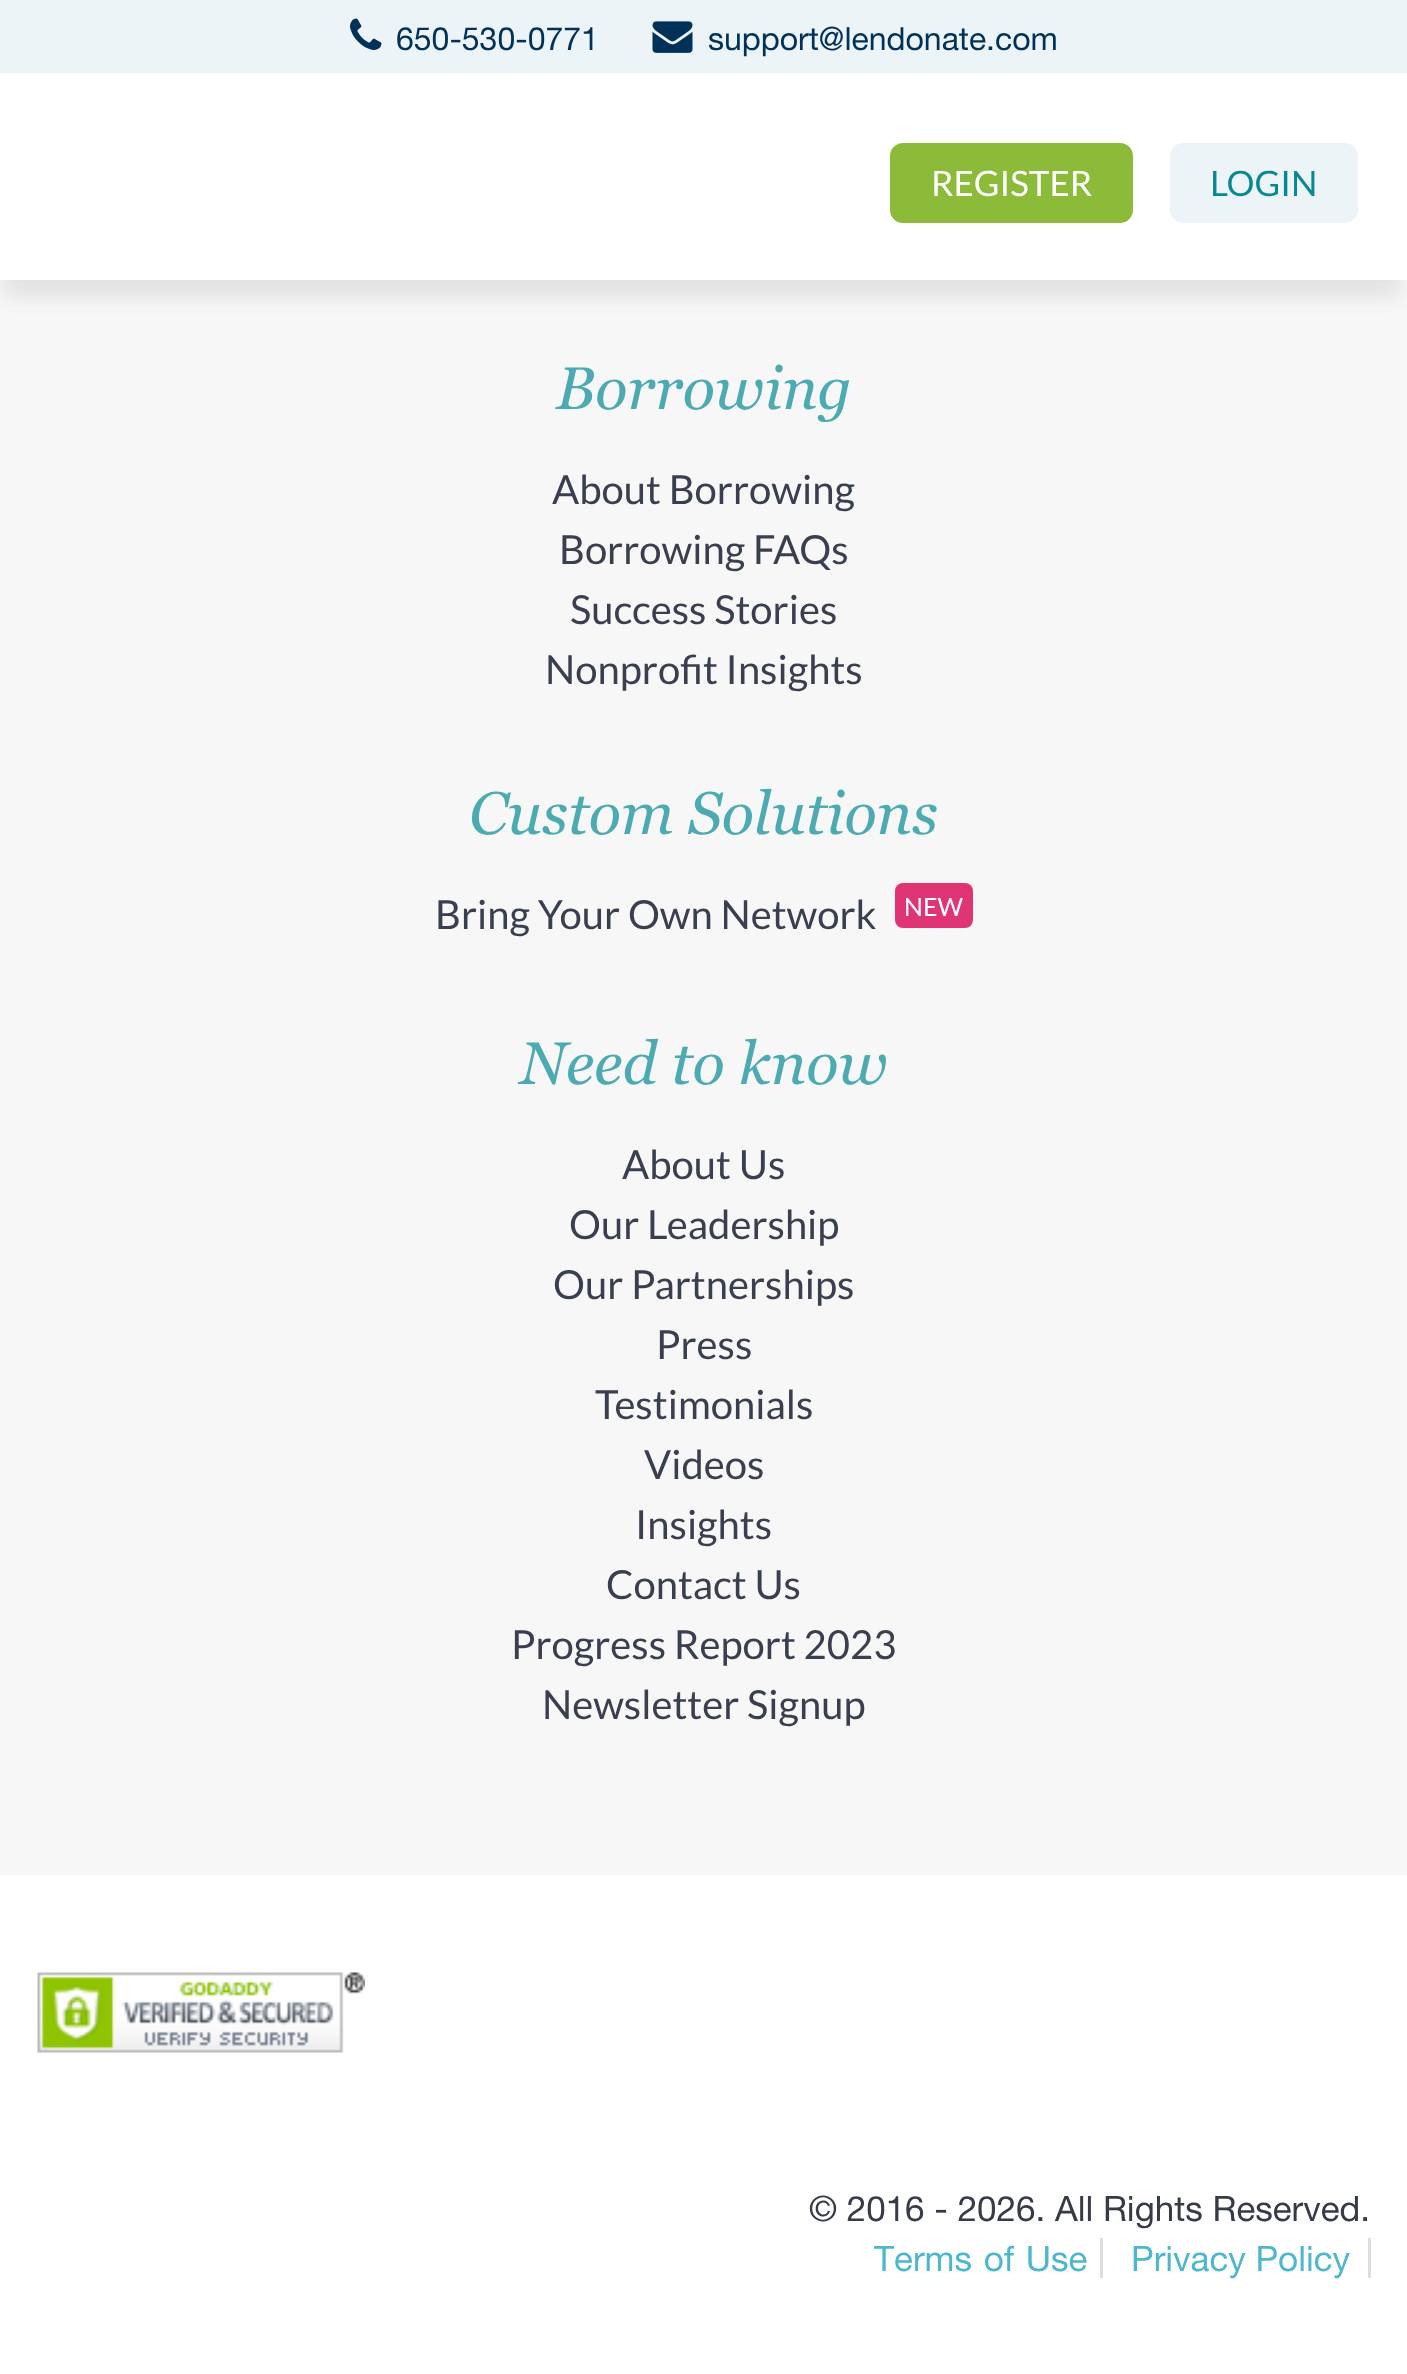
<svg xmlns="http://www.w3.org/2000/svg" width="1407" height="2374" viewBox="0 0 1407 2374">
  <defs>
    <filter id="blur1" x="-50%" y="-200%" width="200%" height="500%"><feGaussianBlur stdDeviation="10"/></filter>
  </defs>
  <rect width="100%" height="100%" fill="#ffffff"/>
  <rect x="0" y="280" width="1407" height="1595" fill="#f7f7f7"/>
  <rect x="3" y="28" width="1397" height="270" fill="#d4d4d4" fill-opacity="0.58" filter="url(#blur1)"/>
  <rect x="0" y="73" width="1407" height="207" fill="#ffffff"/>
  <rect x="0" y="0" width="1407" height="73" fill="#edf4f7"/>
  <image x="350" y="18" width="32" height="32" href="img1.png"/>
  <text x="396" y="50" font-family="Helvetica Neue" font-size="32" fill="#003158">650-530-0771</text>
  <image x="652" y="21" width="41" height="32" href="img2.png"/>
  <text x="708" y="50" font-family="Helvetica Neue" font-size="32" fill="#003158">support@lendonate.com</text>
  <rect x="891.5" y="144.5" width="240" height="77" rx="11.5" fill="#8cbb3a" stroke="#8cbb3a" stroke-width="3"/>
  <text x="931" y="196" font-family="Lato" font-size="35" fill="#ffffff">REGISTER</text>
  <rect x="1171.5" y="144.5" width="185" height="77" rx="11.5" fill="#edf4f7" stroke="#edf4f7" stroke-width="3"/>
  <text x="1210" y="196" font-family="Lato" font-size="35" fill="#078994">LOGIN</text>
  <text x="556" y="409" font-family="Georgia" font-size="60" font-style="italic" fill="#4baab2">Borrowing</text>
  <text x="552" y="504" font-family="Lato" font-size="40" fill="#393f4f">About Borrowing</text>
  <text x="559" y="564" font-family="Lato" font-size="40" fill="#393f4f">Borrowing FAQs</text>
  <text x="570" y="624" font-family="Lato" font-size="40" fill="#393f4f">Success Stories</text>
  <text x="545" y="684" font-family="Lato" font-size="40" fill="#393f4f">Nonprofit Insights</text>
  <text x="469" y="834" font-family="Georgia" font-size="60" font-style="italic" fill="#4baab2">Custom Solutions</text>
  <text x="435" y="929" font-family="Lato" font-size="40" fill="#393f4f">Bring Your Own Network</text>
  <rect x="895" y="883" width="78" height="45" rx="8" fill="#e03574"/>
  <text x="904" y="916" font-family="Lato" font-size="25" fill="#ffffff">NEW</text>
  <text x="520" y="1084" font-family="Georgia" font-size="60" font-style="italic" fill="#4baab2">Need to know</text>
  <text x="622" y="1179" font-family="Lato" font-size="40" fill="#393f4f">About Us</text>
  <text x="569" y="1239" font-family="Lato" font-size="40" fill="#393f4f">Our Leadership</text>
  <text x="553" y="1299" font-family="Lato" font-size="40" fill="#393f4f">Our Partnerships</text>
  <text x="656" y="1359" font-family="Lato" font-size="40" fill="#393f4f">Press</text>
  <text x="595" y="1419" font-family="Lato" font-size="40" fill="#393f4f">Testimonials</text>
  <text x="644" y="1479" font-family="Lato" font-size="40" fill="#393f4f">Videos</text>
  <text x="635" y="1539" font-family="Lato" font-size="40" fill="#393f4f">Insights</text>
  <text x="606" y="1599" font-family="Lato" font-size="40" fill="#393f4f">Contact Us</text>
  <text x="511" y="1659" font-family="Lato" font-size="40" fill="#393f4f">Progress Report 2023</text>
  <text x="542" y="1719" font-family="Lato" font-size="40" fill="#393f4f">Newsletter Signup</text>
  <image x="37" y="1972" width="328" height="81" href="img3.png"/>
  <text x="809" y="2221" font-family="Helvetica Neue" font-size="35" fill="#373b47">© 2016 - 2026. All Rights Reserved.</text>
  <text x="874" y="2271" word-spacing="2" font-family="Helvetica Neue" font-size="35" fill="#4eb7cd">Terms of Use</text>
  <rect x="1100" y="2238" width="3" height="40" fill="#dddddd"/>
  <text x="1131" y="2271" font-family="Helvetica Neue" font-size="35" fill="#4eb7cd">Privacy Policy</text>
  <rect x="1368" y="2238" width="3" height="40" fill="#dddddd"/>
</svg>
